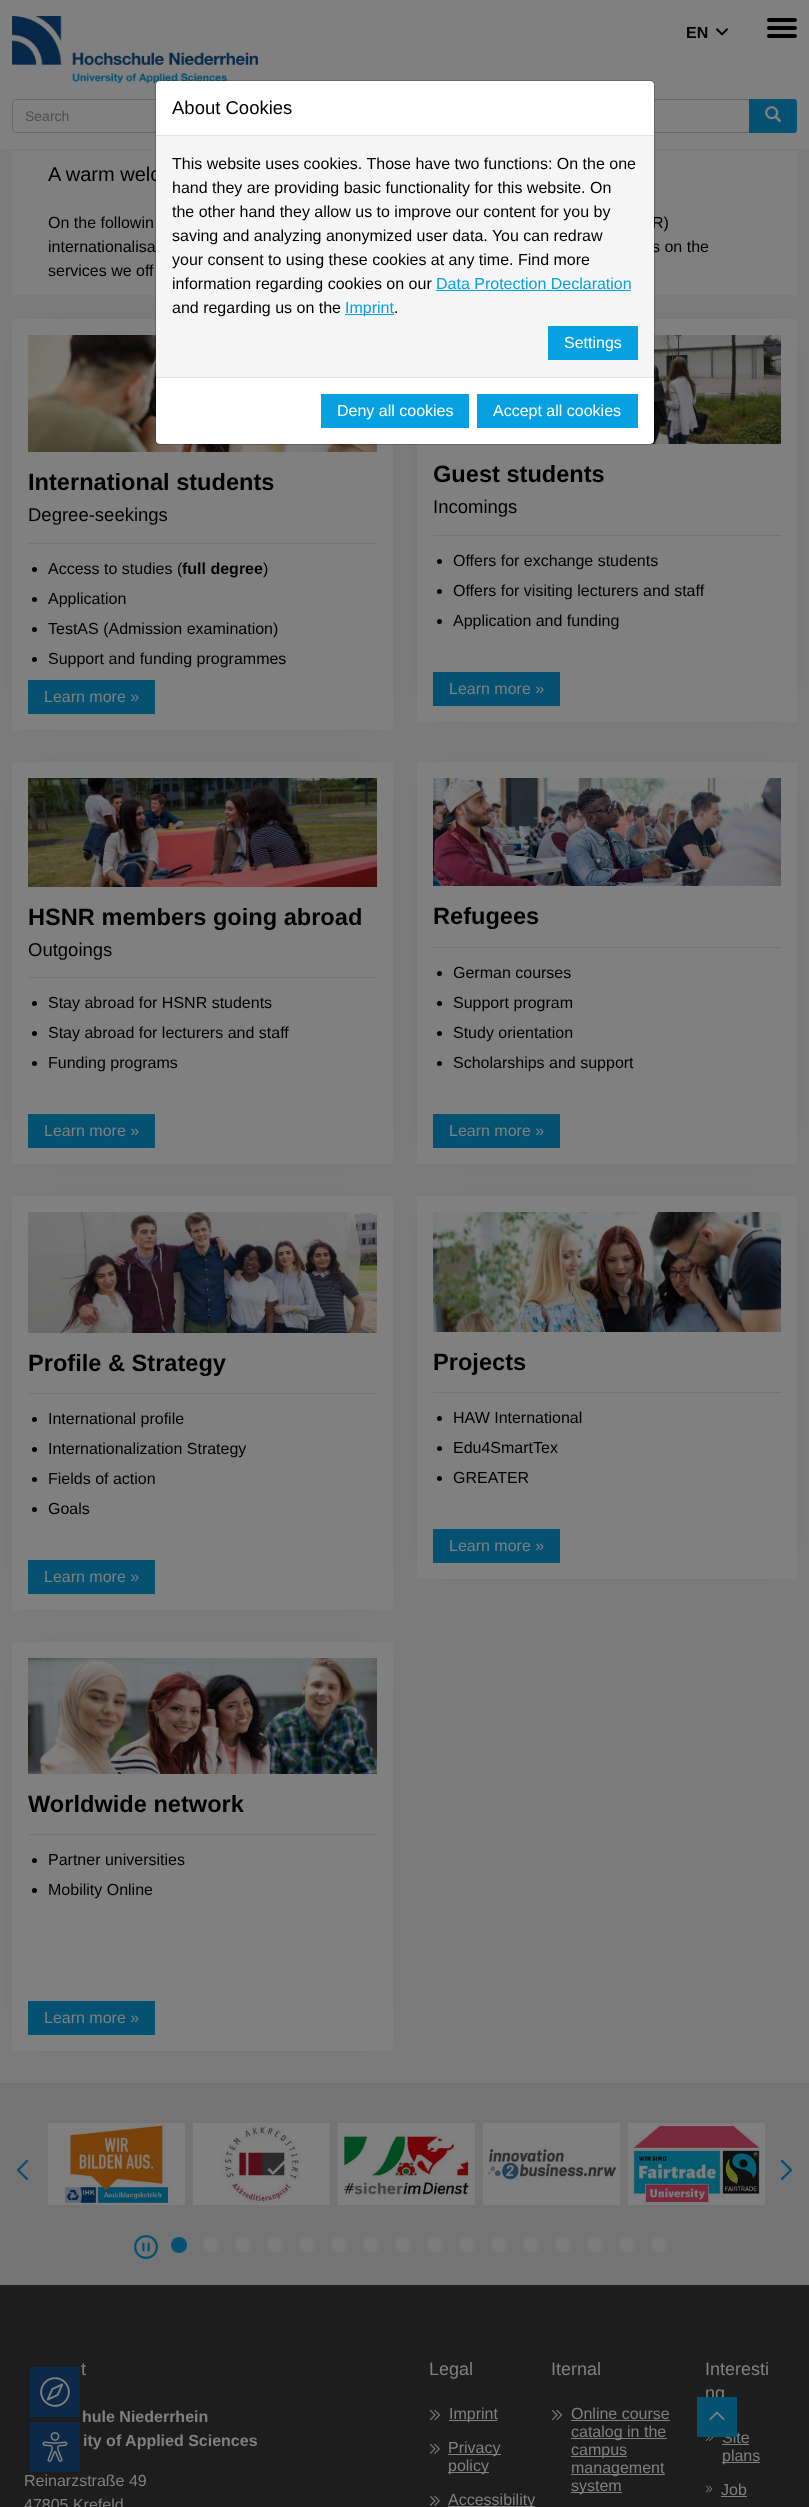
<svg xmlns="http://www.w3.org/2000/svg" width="809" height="2507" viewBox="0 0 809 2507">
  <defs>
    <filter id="blur1" x="-50%" y="-200%" width="200%" height="500%"><feGaussianBlur stdDeviation="16"/></filter>
  </defs>
  <rect width="100%" height="100%" fill="#7b7b7b"/>
  <rect x="0" y="0" width="809" height="149" fill="#808080"/>
  <image x="12" y="16" width="246" height="67" href="img1.png"/>
  <text x="686" y="38" font-family="Liberation Sans" font-size="16" font-weight="bold" fill="#000000">EN</text>
  <image x="716" y="28" width="12" height="8" href="img2.png"/>
  <rect x="767" y="26" width="30" height="4" rx="2" fill="#000000"/>
  <rect x="767" y="18" width="30" height="4" rx="2" fill="#000000"/>
  <rect x="767" y="34" width="30" height="4" rx="2" fill="#000000"/>
  <path d="M16 99.5H749.5V132.5H16C14 132.5 12.5 131 12.5 129V103C12.5 101 14 99.5 16 99.5Z" fill="none" stroke="#676a6d"/>
  <text x="25" y="121" font-family="Liberation Sans" font-size="14" fill="#4d4d4d">Search</text>
  <path d="M749 99H794C795.5 99 797 100.5 797 102V130C797 131.5 795.5 133 794 133H749Z" fill="#045171"/>
  <image x="765" y="106" width="17" height="17" href="img3.png"/>
  <rect x="36" y="343" width="333" height="363" fill="#000000" fill-opacity="0.5" filter="url(#blur1)"/>
  <rect x="441" y="343" width="332" height="355" fill="#000000" fill-opacity="0.5" filter="url(#blur1)"/>
  <rect x="12" y="151" width="785" height="144" fill="#808080"/>
  <text x="48" y="181" font-family="Liberation Sans" font-size="20" fill="#000000">A warm welc</text>
  <text x="652" y="228" font-family="Liberation Sans" font-size="16" fill="#000000">R)</text>
  <text x="652" y="252" font-family="Liberation Sans" font-size="16" fill="#000000">s on the</text>
  <rect x="12" y="319" width="381" height="411" fill="#808080"/>
  <image x="28" y="335" width="349" height="117" href="img4.png"/>
  <rect x="417" y="319" width="380" height="403" fill="#808080"/>
  <image x="650" y="335" width="131" height="109" href="img5.png"/>
  <rect x="156" y="81" width="498" height="363" rx="4" fill="#ffffff"/>
  <text x="48" y="252" font-family="Liberation Sans" font-size="16" fill="#000000">internationalisa</text>
  <rect x="155.5" y="80.5" width="499" height="364" rx="4.5" fill="none" stroke="#000000" stroke-opacity="0.2"/>
  <rect x="156" y="135" width="498" height="1" fill="#dee2e6"/>
  <text x="172" y="114" font-family="Liberation Sans" font-size="18.5" fill="#000000">About Cookies</text>
  <rect x="156" y="136" width="498" height="241" fill="#f5f5f5"/>
  <text x="172" y="169" font-family="Liberation Sans" font-size="16" fill="#000000">This website uses cookies. Those have two functions: On the one</text>
  <text x="172" y="193" font-family="Liberation Sans" font-size="16" fill="#000000">hand they are providing basic functionality for this website. On</text>
  <text x="172" y="217" font-family="Liberation Sans" font-size="16" fill="#000000">the other hand they allow us to improve our content for you by</text>
  <text x="172" y="241" font-family="Liberation Sans" font-size="16" fill="#000000">saving and analyzing anonymized user data. You can redraw</text>
  <text x="172" y="265" font-family="Liberation Sans" font-size="16" fill="#000000">your consent to using these cookies at any time. Find more</text>
  <text x="172" y="289" font-family="Liberation Sans" font-size="16" fill="#000000">information regarding cookies on our</text>
  <text x="436" y="289" font-family="Liberation Sans" font-size="16" fill="#07a1e2">Data Protection Declaration</text>
  <rect x="436" y="290" width="195" height="1" fill="#07a1e2"/>
  <text x="172" y="313" font-family="Liberation Sans" font-size="16" fill="#000000">and regarding us on the</text>
  <rect x="345" y="314" width="49" height="1" fill="#07a1e2"/>
  <text x="345" y="313" font-family="Liberation Sans" font-size="16" fill="#07a1e2">Imprint</text>
  <text x="394" y="313" font-family="Liberation Sans" font-size="16" fill="#000000">.</text>
  <rect x="548" y="326" width="90" height="34" fill="#07a1e2"/>
  <text x="564" y="348" font-family="Liberation Sans" font-size="16" fill="#ffffff">Settings</text>
  <rect x="156" y="377" width="498" height="1" fill="#dee2e6"/>
  <rect x="321" y="394" width="148" height="34" fill="#07a1e2"/>
  <text x="337" y="416" font-family="Liberation Sans" font-size="16" fill="#ffffff">Deny all cookies</text>
  <rect x="477" y="394" width="161" height="34" fill="#07a1e2"/>
  <text x="493" y="416" font-family="Liberation Sans" font-size="16" fill="#ffffff">Accept all cookies</text>
  <text x="48" y="228" font-family="Liberation Sans" font-size="16" fill="#000000">On the followin</text>
  <text x="48" y="276" font-family="Liberation Sans" font-size="16" fill="#000000">services we off</text>
  <text x="28" y="490" font-family="Liberation Sans" font-size="23.6" font-weight="bold" fill="#000000">International students</text>
  <text x="28" y="521" font-family="Liberation Sans" font-size="18.5" fill="#000000">Degree-seekings</text>
  <rect x="28" y="543" width="349" height="1" fill="#747474"/>
  <circle cx="34.5" cy="569.5" r="2.5" fill="#000000"/>
  <text x="48" y="574" font-family="Liberation Sans" font-size="16" fill="#000000">Access to studies (</text>
  <text x="182" y="574" font-family="Liberation Sans" font-size="16" font-weight="bold" fill="#000000">full degree</text>
  <text x="263" y="574" font-family="Liberation Sans" font-size="16" fill="#000000">)</text>
  <circle cx="34.5" cy="599.5" r="2.5" fill="#000000"/>
  <text x="48" y="604" font-family="Liberation Sans" font-size="16" fill="#000000">Application</text>
  <circle cx="34.5" cy="629.5" r="2.5" fill="#000000"/>
  <text x="48" y="634" font-family="Liberation Sans" font-size="16" fill="#000000">TestAS (Admission examination)</text>
  <circle cx="34.5" cy="659.5" r="2.5" fill="#000000"/>
  <text x="48" y="664" font-family="Liberation Sans" font-size="16" fill="#000000">Support and funding programmes</text>
  <rect x="28" y="680" width="127" height="34" fill="#045171"/>
  <text x="44" y="702" font-family="Liberation Sans" font-size="16" fill="#808080">Learn more »</text>
  <text x="433" y="482" font-family="Liberation Sans" font-size="23.6" font-weight="bold" fill="#000000">Guest students</text>
  <text x="433" y="513" font-family="Liberation Sans" font-size="18.5" fill="#000000">Incomings</text>
  <rect x="433" y="535" width="348" height="1" fill="#747474"/>
  <circle cx="439.5" cy="561.5" r="2.5" fill="#000000"/>
  <text x="453" y="566" font-family="Liberation Sans" font-size="16" fill="#000000">Offers for exchange students</text>
  <circle cx="439.5" cy="591.5" r="2.5" fill="#000000"/>
  <text x="453" y="596" font-family="Liberation Sans" font-size="16" fill="#000000">Offers for visiting lecturers and staff</text>
  <circle cx="439.5" cy="621.5" r="2.5" fill="#000000"/>
  <text x="453" y="626" font-family="Liberation Sans" font-size="16" fill="#000000">Application and funding</text>
  <rect x="433" y="672" width="127" height="34" fill="#045171"/>
  <text x="449" y="694" font-family="Liberation Sans" font-size="16" fill="#808080">Learn more »</text>
  <rect x="36" y="786" width="333" height="354" fill="#000000" fill-opacity="0.5" filter="url(#blur1)"/>
  <rect x="440" y="786" width="333" height="354" fill="#000000" fill-opacity="0.5" filter="url(#blur1)"/>
  <rect x="12" y="762" width="381" height="402" fill="#808080"/>
  <image x="28" y="778" width="349" height="109" href="img6.png"/>
  <text x="28" y="925" font-family="Liberation Sans" font-size="23.6" font-weight="bold" fill="#000000">HSNR members going abroad</text>
  <text x="28" y="956" font-family="Liberation Sans" font-size="18.5" fill="#000000">Outgoings</text>
  <rect x="28" y="977" width="349" height="1" fill="#747474"/>
  <circle cx="34.5" cy="1003.5" r="2.5" fill="#000000"/>
  <text x="48" y="1008" font-family="Liberation Sans" font-size="16" fill="#000000">Stay abroad for HSNR students</text>
  <circle cx="34.5" cy="1033.5" r="2.5" fill="#000000"/>
  <text x="48" y="1038" font-family="Liberation Sans" font-size="16" fill="#000000">Stay abroad for lecturers and staff</text>
  <circle cx="34.5" cy="1063.5" r="2.5" fill="#000000"/>
  <text x="48" y="1068" font-family="Liberation Sans" font-size="16" fill="#000000">Funding programs</text>
  <rect x="28" y="1114" width="127" height="34" fill="#045171"/>
  <text x="44" y="1136" font-family="Liberation Sans" font-size="16" fill="#808080">Learn more »</text>
  <rect x="417" y="762" width="380" height="402" fill="#808080"/>
  <image x="433" y="778" width="348" height="108" href="img7.png"/>
  <text x="433" y="924" font-family="Liberation Sans" font-size="23.6" font-weight="bold" fill="#000000">Refugees</text>
  <rect x="433" y="947" width="348" height="1" fill="#747474"/>
  <circle cx="439.5" cy="973.5" r="2.5" fill="#000000"/>
  <text x="453" y="978" font-family="Liberation Sans" font-size="16" fill="#000000">German courses</text>
  <circle cx="439.5" cy="1003.5" r="2.5" fill="#000000"/>
  <text x="453" y="1008" font-family="Liberation Sans" font-size="16" fill="#000000">Support program</text>
  <circle cx="439.5" cy="1033.5" r="2.5" fill="#000000"/>
  <text x="453" y="1038" font-family="Liberation Sans" font-size="16" fill="#000000">Study orientation</text>
  <circle cx="439.5" cy="1063.5" r="2.5" fill="#000000"/>
  <text x="453" y="1068" font-family="Liberation Sans" font-size="16" fill="#000000">Scholarships and support</text>
  <rect x="433" y="1114" width="127" height="34" fill="#045171"/>
  <text x="449" y="1136" font-family="Liberation Sans" font-size="16" fill="#808080">Learn more »</text>
  <rect x="36" y="1220" width="332" height="366" fill="#000000" fill-opacity="0.5" filter="url(#blur1)"/>
  <rect x="440" y="1220" width="333" height="335" fill="#000000" fill-opacity="0.5" filter="url(#blur1)"/>
  <rect x="12" y="1196" width="381" height="414" fill="#808080"/>
  <image x="28" y="1212" width="349" height="121" href="img8.png"/>
  <text x="28" y="1371" font-family="Liberation Sans" font-size="23.6" font-weight="bold" fill="#000000">Profile &amp; Strategy</text>
  <rect x="28" y="1393" width="349" height="1" fill="#747474"/>
  <circle cx="34.5" cy="1419.5" r="2.5" fill="#000000"/>
  <text x="48" y="1424" font-family="Liberation Sans" font-size="16" fill="#000000">International profile</text>
  <circle cx="34.5" cy="1449.5" r="2.5" fill="#000000"/>
  <text x="48" y="1454" font-family="Liberation Sans" font-size="16" fill="#000000">Internationalization Strategy</text>
  <circle cx="34.5" cy="1479.5" r="2.5" fill="#000000"/>
  <text x="48" y="1484" font-family="Liberation Sans" font-size="16" fill="#000000">Fields of action</text>
  <circle cx="34.5" cy="1509.5" r="2.5" fill="#000000"/>
  <text x="48" y="1514" font-family="Liberation Sans" font-size="16" fill="#000000">Goals</text>
  <rect x="28" y="1560" width="127" height="34" fill="#045171"/>
  <text x="44" y="1582" font-family="Liberation Sans" font-size="16" fill="#808080">Learn more »</text>
  <rect x="417" y="1196" width="380" height="383" fill="#808080"/>
  <image x="433" y="1212" width="348" height="120" href="img9.png"/>
  <text x="433" y="1370" font-family="Liberation Sans" font-size="23.6" font-weight="bold" fill="#000000">Projects</text>
  <rect x="433" y="1392" width="348" height="1" fill="#747474"/>
  <circle cx="439.5" cy="1418.5" r="2.5" fill="#000000"/>
  <text x="453" y="1423" font-family="Liberation Sans" font-size="16" fill="#000000">HAW International</text>
  <circle cx="439.5" cy="1448.5" r="2.5" fill="#000000"/>
  <text x="453" y="1453" font-family="Liberation Sans" font-size="16" fill="#000000">Edu4SmartTex</text>
  <circle cx="439.5" cy="1478.5" r="2.5" fill="#000000"/>
  <text x="453" y="1483" font-family="Liberation Sans" font-size="16" fill="#000000">GREATER</text>
  <rect x="433" y="1529" width="127" height="34" fill="#045171"/>
  <text x="449" y="1551" font-family="Liberation Sans" font-size="16" fill="#808080">Learn more »</text>
  <rect x="36" y="1666" width="332" height="361" fill="#000000" fill-opacity="0.5" filter="url(#blur1)"/>
  <rect x="12" y="1642" width="381" height="409" fill="#808080"/>
  <image x="28" y="1658" width="349" height="116" href="img10.png"/>
  <text x="28" y="1812" font-family="Liberation Sans" font-size="23.6" font-weight="bold" fill="#000000">Worldwide network</text>
  <rect x="28" y="1834" width="349" height="1" fill="#747474"/>
  <circle cx="34.5" cy="1860.5" r="2.5" fill="#000000"/>
  <text x="48" y="1865" font-family="Liberation Sans" font-size="16" fill="#000000">Partner universities</text>
  <circle cx="34.5" cy="1890.5" r="2.5" fill="#000000"/>
  <text x="48" y="1895" font-family="Liberation Sans" font-size="16" fill="#000000">Mobility Online</text>
  <rect x="28" y="2001" width="127" height="34" fill="#045171"/>
  <text x="44" y="2023" font-family="Liberation Sans" font-size="16" fill="#808080">Learn more »</text>
  <rect x="0" y="2083" width="809" height="202" fill="#747474"/>
  <image x="48" y="2123" width="137" height="82" href="img11.png"/>
  <image x="193" y="2123" width="137" height="82" href="img12.png"/>
  <image x="338" y="2123" width="137" height="82" href="img13.png"/>
  <image x="483" y="2123" width="137" height="82" href="img14.png"/>
  <image x="628" y="2123" width="137" height="82" href="img15.png"/>
  <image x="16" y="2159" width="13" height="22" href="img16.png"/>
  <image x="780" y="2159" width="13" height="22" href="img17.png"/>
  <image x="134" y="2235" width="24" height="24" href="img18.png"/>
  <circle cx="179" cy="2245" r="8" fill="#045171"/>
  <circle cx="211" cy="2245" r="8" fill="#7b7b7b"/>
  <circle cx="243" cy="2245" r="8" fill="#7b7b7b"/>
  <circle cx="275" cy="2245" r="8" fill="#7b7b7b"/>
  <circle cx="307" cy="2245" r="8" fill="#7b7b7b"/>
  <circle cx="339" cy="2245" r="8" fill="#7b7b7b"/>
  <circle cx="371" cy="2245" r="8" fill="#7b7b7b"/>
  <circle cx="403" cy="2245" r="8" fill="#7b7b7b"/>
  <circle cx="435" cy="2245" r="8" fill="#7b7b7b"/>
  <circle cx="467" cy="2245" r="8" fill="#7b7b7b"/>
  <circle cx="499" cy="2245" r="8" fill="#7b7b7b"/>
  <circle cx="531" cy="2245" r="8" fill="#7b7b7b"/>
  <circle cx="563" cy="2245" r="8" fill="#7b7b7b"/>
  <circle cx="595" cy="2245" r="8" fill="#7b7b7b"/>
  <circle cx="627" cy="2245" r="8" fill="#7b7b7b"/>
  <circle cx="659" cy="2245" r="8" fill="#7b7b7b"/>
  <rect x="0" y="2285" width="809" height="222" fill="#1d1d1d"/>
  <text x="81" y="2375" font-family="Liberation Sans" font-size="18" fill="#808080">t</text>
  <text x="82" y="2422" font-family="Liberation Sans" font-size="16" font-weight="bold" fill="#808080">hule Niederrhein</text>
  <text x="83" y="2446" font-family="Liberation Sans" font-size="16" font-weight="bold" fill="#808080">ity of Applied Sciences</text>
  <text x="24" y="2486" font-family="Liberation Sans" font-size="16" fill="#808080">Reinarzstraße 49</text>
  <text x="24" y="2510" font-family="Liberation Sans" font-size="16" fill="#808080">47805 Krefeld</text>
  <text x="429" y="2375" font-family="Liberation Sans" font-size="18" fill="#808080">Legal</text>
  <image x="430" y="2410" width="10" height="10" href="img19.png"/>
  <rect x="449" y="2420" width="48" height="1" fill="#808080"/>
  <text x="449" y="2419" font-family="Liberation Sans" font-size="16" fill="#808080">Imprint</text>
  <image x="430" y="2444" width="10" height="10" href="img20.png"/>
  <rect x="448" y="2454" width="53" height="1" fill="#808080"/>
  <text x="448" y="2453" font-family="Liberation Sans" font-size="16" fill="#808080">Privacy</text>
  <rect x="448" y="2472" width="41" height="1" fill="#808080"/>
  <text x="448" y="2471" font-family="Liberation Sans" font-size="16" fill="#808080">policy</text>
  <image x="430" y="2496" width="10" height="10" href="img20.png"/>
  <rect x="448" y="2506" width="87" height="1" fill="#808080"/>
  <text x="448" y="2505" font-family="Liberation Sans" font-size="16" fill="#808080">Accessibility</text>
  <text x="551" y="2375" font-family="Liberation Sans" font-size="18" fill="#808080">Iternal</text>
  <image x="552" y="2410" width="10" height="10" href="img19.png"/>
  <text x="571" y="2419" font-family="Liberation Sans" font-size="16" fill="#808080">Online course</text>
  <rect x="571" y="2420" width="99" height="1" fill="#808080"/>
  <rect x="571" y="2438" width="96" height="1" fill="#808080"/>
  <text x="571" y="2437" font-family="Liberation Sans" font-size="16" fill="#808080">catalog in the</text>
  <rect x="571" y="2456" width="56" height="1" fill="#808080"/>
  <text x="571" y="2455" font-family="Liberation Sans" font-size="16" fill="#808080">campus</text>
  <rect x="571" y="2474" width="94" height="1" fill="#808080"/>
  <text x="571" y="2473" font-family="Liberation Sans" font-size="16" fill="#808080">management</text>
  <rect x="571" y="2492" width="51" height="1" fill="#808080"/>
  <text x="571" y="2491" font-family="Liberation Sans" font-size="16" fill="#808080">system</text>
  <text x="705" y="2375" font-family="Liberation Sans" font-size="18" fill="#808080">Interesti</text>
  <text x="705" y="2399" font-family="Liberation Sans" font-size="18" fill="#808080">ng</text>
  <image x="705" y="2437" width="8" height="4" href="img21.png"/>
  <text x="722" y="2443" font-family="Liberation Sans" font-size="16" fill="#808080">Site</text>
  <rect x="722" y="2444" width="27" height="1" fill="#808080"/>
  <rect x="722" y="2462" width="38" height="1" fill="#808080"/>
  <text x="722" y="2461" font-family="Liberation Sans" font-size="16" fill="#808080">plans</text>
  <image x="705" y="2485" width="8" height="8" href="img22.png"/>
  <text x="721" y="2495" font-family="Liberation Sans" font-size="16" fill="#808080">Job</text>
  <rect x="721" y="2496" width="26" height="1" fill="#808080"/>
  <rect x="30" y="2367" width="50" height="50" fill="#0c2949"/>
  <image x="40" y="2377" width="30" height="30" href="img23.png"/>
  <rect x="30" y="2422" width="50" height="50" fill="#0c2949"/>
  <image x="42" y="2432" width="26" height="30" href="img24.png"/>
  <rect x="697" y="2397" width="40" height="40" fill="#045171"/>
  <image x="709" y="2411" width="16" height="9" href="img25.png"/>
</svg>
